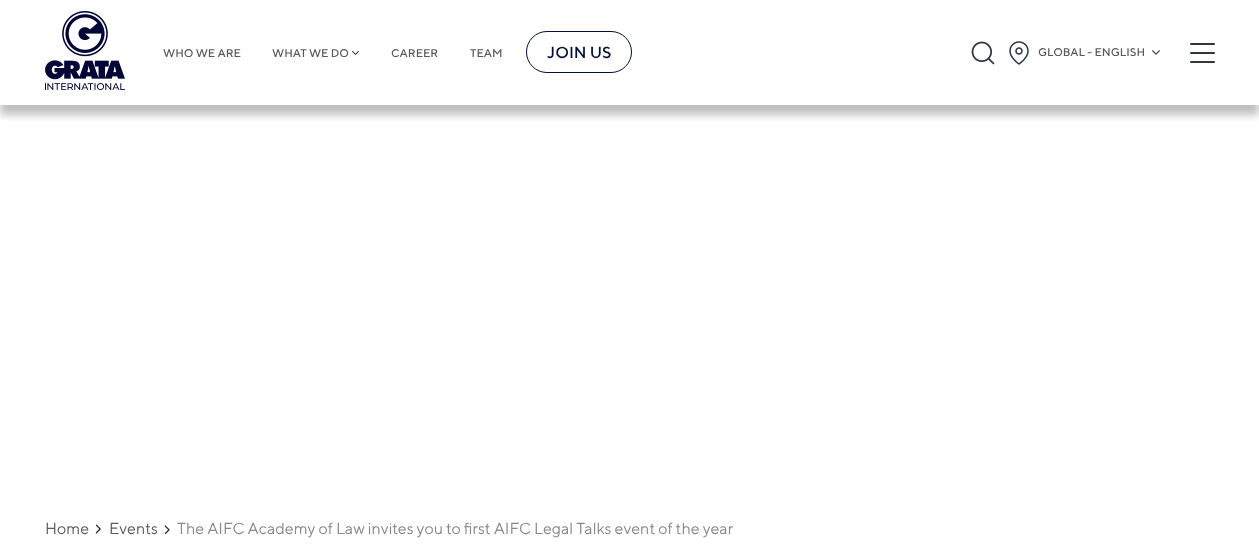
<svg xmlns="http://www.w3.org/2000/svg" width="1259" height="550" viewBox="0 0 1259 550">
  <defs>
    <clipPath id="clip1"><rect x="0" y="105" width="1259" height="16"/></clipPath>
    <filter id="blur1" x="-50%" y="-200%" width="200%" height="500%"><feGaussianBlur stdDeviation="4"/></filter>
  </defs>
  <rect width="100%" height="100%" fill="#ffffff"/>
  <g clip-path="url(#clip1)">
    <rect x="0" y="10" width="1259" height="105" fill="#000000" fill-opacity="0.25" filter="url(#blur1)"/>
  </g>
  <image x="45" y="11" width="80" height="79" href="img1.png"/>
  <text x="163" y="57" font-family="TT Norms" font-size="11.25" font-weight="500" fill="#5a5a5a">WHO WE ARE</text>
  <text x="272" y="57" font-family="TT Norms" font-size="11.25" font-weight="500" fill="#5a5a5a">WHAT WE DO</text>
  <image x="352" y="51" width="7" height="4" href="img2.png"/>
  <text x="391" y="57" font-family="TT Norms" font-size="11.25" font-weight="500" fill="#5a5a5a">CAREER</text>
  <text x="470" y="57" font-family="TT Norms" font-size="11.25" font-weight="500" fill="#5a5a5a">TEAM</text>
  <rect x="526.5" y="31.5" width="105" height="41" rx="20.5" fill="none" stroke="#050f38"/>
  <text x="547" y="58" font-family="TT Norms" font-size="16" font-weight="500" fill="#050f38">JOIN US</text>
  <image x="971" y="41" width="24" height="24" href="img3.png"/>
  <image x="1009" y="41" width="20" height="24" href="img4.png"/>
  <text x="1038" y="56" font-family="TT Norms" font-size="11.25" font-weight="500" fill="#5a5a5a">GLOBAL - ENGLISH</text>
  <image x="1152" y="50" width="8" height="5" href="img5.png"/>
  <rect x="1190" y="43" width="25" height="2" rx="1" fill="#2f363d"/>
  <rect x="1190" y="52" width="25" height="2" rx="1" fill="#2f363d"/>
  <rect x="1190" y="61" width="25" height="2" rx="1" fill="#2f363d"/>
  <text x="45" y="534" font-family="TT Norms" font-size="16" fill="#5a5a5a">Home</text>
  <image x="95" y="524" width="6" height="10" href="img6.png"/>
  <text x="109" y="534" font-family="TT Norms" font-size="16" fill="#5a5a5a">Events</text>
  <image x="164" y="525" width="6" height="10" href="img7.png"/>
  <text x="177" y="534" font-family="TT Norms" font-size="16" fill="#888888">The AIFC Academy of Law invites you to first AIFC Legal Talks event of the year</text>
</svg>
